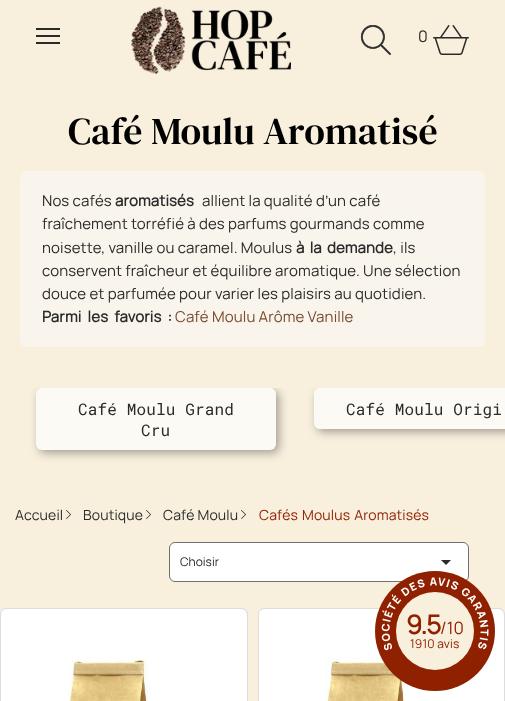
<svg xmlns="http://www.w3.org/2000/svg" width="505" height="701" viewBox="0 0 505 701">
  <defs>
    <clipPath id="clip1"><rect x="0" y="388" width="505" height="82"/></clipPath>
    <filter id="blur1" x="-50%" y="-200%" width="200%" height="500%"><feGaussianBlur stdDeviation="5"/></filter>
    <clipPath id="clip2"><rect x="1" y="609" width="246" height="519" rx="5"/></clipPath>
    <clipPath id="clip3"><rect x="1" y="609" width="246" height="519" rx="5"/></clipPath>
    <clipPath id="clip4"><rect x="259" y="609" width="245" height="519" rx="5"/></clipPath>
    <clipPath id="clip5"><rect x="259" y="609" width="245" height="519" rx="5"/></clipPath>
  </defs>
  <rect width="100%" height="100%" fill="#f8efdd"/>
  <rect x="36" y="28" width="24" height="2" fill="#2a2a2a"/>
  <rect x="36" y="35" width="24" height="2" fill="#2a2a2a"/>
  <rect x="36" y="42" width="24" height="2" fill="#2a2a2a"/>
  <image x="131" y="6" width="160" height="68" href="img1.png"/>
  <image x="360" y="25" width="31" height="30" href="img2.png"/>
  <text x="418" y="42" font-family="Manrope" font-size="16" letter-spacing="0.15" fill="#2a2a2a">0</text>
  <image x="433" y="25" width="36" height="30" href="img3.png"/>
  <text x="68" y="144" font-family="DM Serif Text" font-size="38" letter-spacing="0.15" fill="#000000">Café Moulu Aromatisé</text>
  <rect x="20" y="171" width="465" height="176" rx="6" fill="#f9f4ec"/>
  <text x="42" y="206" font-family="Manrope" font-size="15" letter-spacing="0.15" fill="#2a2a2a">Nos cafés</text>
  <text x="115" y="206" font-family="Manrope" font-size="15" font-weight="bold" letter-spacing="0.15" fill="#2a2a2a">aromatisés</text>
  <text x="202" y="206" font-family="Manrope" font-size="15" letter-spacing="0.15" fill="#2a2a2a">allient la qualité d</text>
  <text x="325" y="206" font-family="Liberation Sans" font-size="15" letter-spacing="0.15" fill="#2a2a2a">’</text>
  <text x="328" y="206" font-family="Manrope" font-size="15" letter-spacing="0.15" fill="#2a2a2a">un café</text>
  <text x="42" y="229" font-family="Manrope" font-size="15" letter-spacing="0.15" fill="#2a2a2a">fraîchement torréfié à des parfums gourmands comme</text>
  <text x="42" y="253" font-family="Manrope" font-size="15" letter-spacing="0.15" fill="#2a2a2a">noisette, vanille ou caramel. Moulus</text>
  <text x="296" y="253" word-spacing="2" font-family="Manrope" font-size="15" font-weight="bold" letter-spacing="0.15" fill="#2a2a2a">à la demande</text>
  <text x="393" y="253" font-family="Manrope" font-size="15" letter-spacing="0.15" fill="#2a2a2a">, ils</text>
  <text x="42" y="276" font-family="Manrope" font-size="15" letter-spacing="0.15" fill="#2a2a2a">conservent fraîcheur et équilibre aromatique. Une sélection</text>
  <text x="42" y="299" font-family="Manrope" font-size="15" letter-spacing="0.15" fill="#2a2a2a">douce et parfumée pour varier les plaisirs au quotidien.</text>
  <text x="42" y="322" word-spacing="3" font-family="Manrope" font-size="15" font-weight="bold" letter-spacing="0.15" fill="#2a2a2a">Parmi les favoris :</text>
  <text x="175" y="322" font-family="Manrope" font-size="15" letter-spacing="0.15" fill="#7a4b2e">Café Moulu Arôme Vanille</text>
  <g clip-path="url(#clip1)">
    <rect x="39" y="391" width="240" height="62" rx="6" fill="#000000" fill-opacity="0.34" filter="url(#blur1)"/>
  </g>
  <rect x="36" y="388" width="240" height="62" rx="6" fill="#fcfaf4"/>
  <text x="78" y="415" font-family="Roboto Mono" font-size="16" letter-spacing="0.15" fill="#2a2a2a">Café Moulu Grand</text>
  <text x="141" y="436" font-family="Roboto Mono" font-size="16" letter-spacing="0.15" fill="#2a2a2a">Cru</text>
  <g clip-path="url(#clip1)">
    <rect x="317" y="391" width="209" height="41" rx="6" fill="#000000" fill-opacity="0.34" filter="url(#blur1)"/>
  </g>
  <path d="M320 388H505V429H320C316.5 429 314 426.5 314 423V394C314 390.5 316.5 388 320 388Z" fill="#fcfaf4"/>
  <text x="346" y="415" font-family="Roboto Mono" font-size="16" letter-spacing="0.15" fill="#2a2a2a">Café Moulu Origi</text>
  <text x="15" y="520" font-family="Manrope" font-size="14" letter-spacing="0.15" fill="#2a2a2a">Accueil</text>
  <image x="66" y="510" width="5" height="9" href="img4.png"/>
  <text x="83" y="520" font-family="Manrope" font-size="14" letter-spacing="0.15" fill="#2a2a2a">Boutique</text>
  <image x="146" y="510" width="5" height="9" href="img4.png"/>
  <text x="163" y="520" font-family="Manrope" font-size="14" letter-spacing="0.15" fill="#2a2a2a">Café Moulu</text>
  <image x="241" y="510" width="5" height="9" href="img4.png"/>
  <text x="259" y="520" word-spacing="1" font-family="Manrope" font-size="14" letter-spacing="0.15" fill="#902100">Cafés Moulus Aromatisés</text>
  <rect x="169.5" y="542.5" width="299" height="39" rx="5.5" fill="#ffffff" stroke="#707070"/>
  <text x="180" y="566" font-family="Manrope" font-size="12" fill="#2a2a2a">Choisir</text>
  <path d="M441 560H451L446 565Z" fill="#2a2a2a"/>
  <rect x="0.5" y="608.5" width="247" height="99" rx="5.5" fill="#ffffff" stroke="#dddddd"/>
  <g clip-path="url(#clip2)">
    <rect x="4" y="612" width="246" height="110" rx="6" fill="#000000" fill-opacity="0.34" filter="url(#blur1)"/>
  </g>
  <g clip-path="url(#clip3)">
    <rect x="1" y="609" width="246" height="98" rx="6" fill="#ffffff"/>
  </g>
  <image x="69" y="659" width="79" height="42" href="img5.png"/>
  <rect x="258.5" y="608.5" width="246" height="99" rx="5.5" fill="#ffffff" stroke="#dddddd"/>
  <g clip-path="url(#clip4)">
    <rect x="262" y="612" width="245" height="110" rx="6" fill="#000000" fill-opacity="0.34" filter="url(#blur1)"/>
  </g>
  <g clip-path="url(#clip5)">
    <rect x="259" y="609" width="245" height="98" rx="6" fill="#ffffff"/>
  </g>
  <image x="325" y="657" width="80" height="44" href="img6.png"/>
  <circle cx="435" cy="631" r="60" fill="#902100"/>
  <circle cx="435" cy="631" r="39" fill="#f8efdd"/>
  <text x="406" y="634" font-family="Manrope" font-size="26" font-weight="bold" letter-spacing="-1" fill="#902100">9.5</text>
  <text x="440" y="634" font-family="Manrope" font-size="17" letter-spacing="0.15" fill="#902100">/10</text>
  <text x="410" y="648" font-family="Manrope" font-size="12" letter-spacing="0.15" fill="#902100">1910 avis</text>
  <image x="381" y="577" width="108" height="74" href="img7.png"/>
</svg>
